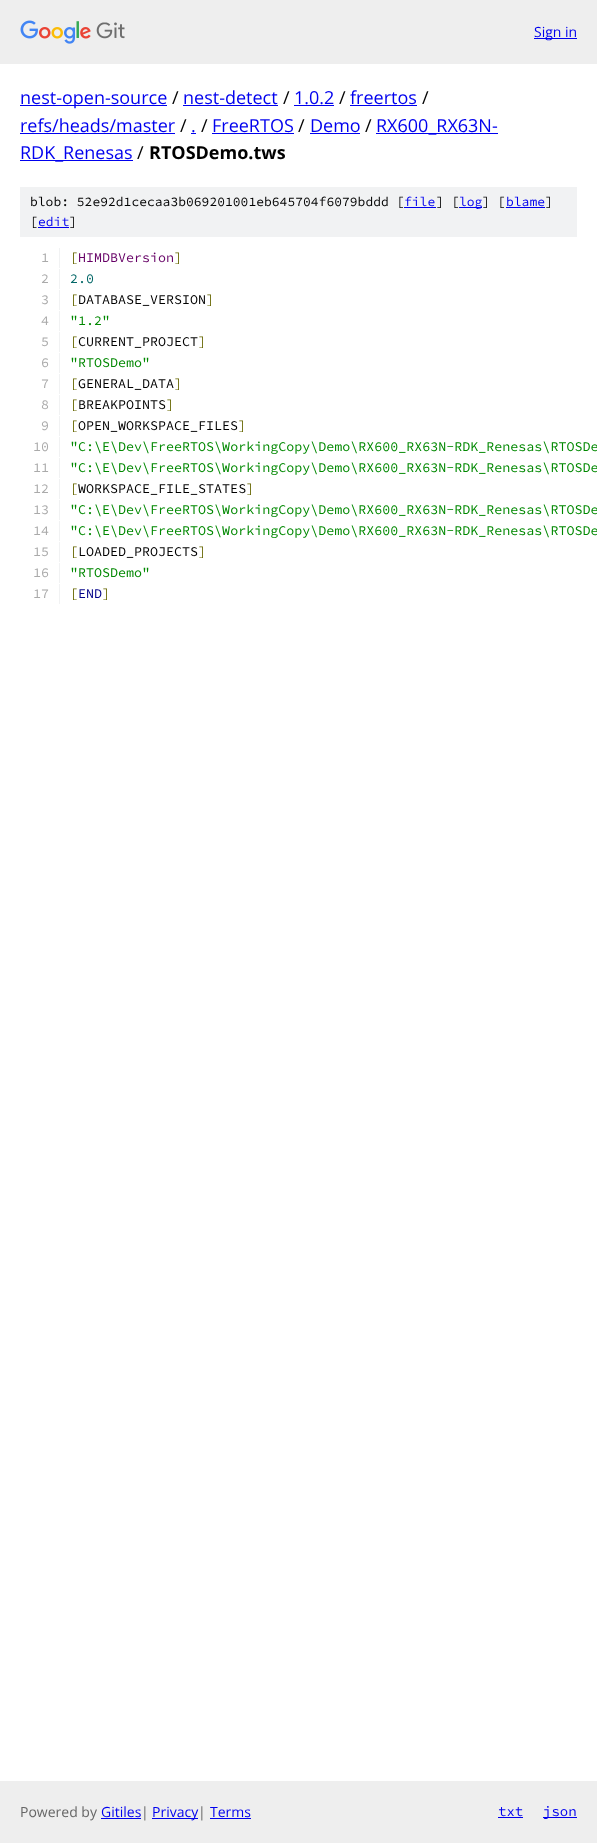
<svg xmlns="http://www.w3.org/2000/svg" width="597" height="1843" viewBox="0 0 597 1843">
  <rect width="100%" height="100%" fill="#ffffff"/>
  <rect x="0" y="0" width="597" height="64" fill="#eeeeee"/>
  <image x="20" y="20" width="105" height="24" href="img1.png"/>
  <rect x="534" y="38" width="43" height="1" fill="#0000ee"/>
  <text x="534" y="37" font-family="Open Sans" font-size="14" fill="#0000ee">Sign in</text>
  <rect x="20" y="105" width="147" height="1" fill="#0000ee"/>
  <text x="20" y="104" font-family="Open Sans" font-size="18" fill="#0000ee">nest-open-source</text>
  <text x="172" y="104" font-family="Open Sans" font-size="18" fill="#000000">/</text>
  <text x="183" y="104" font-family="Open Sans" font-size="18" fill="#0000ee">nest-detect</text>
  <rect x="183" y="105" width="95" height="1" fill="#0000ee"/>
  <text x="283" y="104" font-family="Open Sans" font-size="18" fill="#000000">/</text>
  <text x="294" y="104" font-family="Open Sans" font-size="18" fill="#0000ee">1.0.2</text>
  <rect x="294" y="105" width="40" height="1" fill="#0000ee"/>
  <text x="339" y="104" font-family="Open Sans" font-size="18" fill="#000000">/</text>
  <text x="350" y="104" font-family="Open Sans" font-size="18" fill="#0000ee">freertos</text>
  <rect x="350" y="105" width="67" height="1" fill="#0000ee"/>
  <text x="422" y="104" font-family="Open Sans" font-size="18" fill="#000000">/</text>
  <text x="20" y="132" font-family="Open Sans" font-size="18" fill="#0000ee">refs/heads/master</text>
  <rect x="20" y="133" width="155" height="1" fill="#0000ee"/>
  <text x="180" y="132" font-family="Open Sans" font-size="18" fill="#000000">/</text>
  <text x="191" y="132" font-family="Open Sans" font-size="18" fill="#0000ee">.</text>
  <rect x="191" y="133" width="5" height="1" fill="#0000ee"/>
  <text x="201" y="132" font-family="Open Sans" font-size="18" fill="#000000">/</text>
  <text x="212" y="132" font-family="Open Sans" font-size="18" fill="#0000ee">FreeRTOS</text>
  <rect x="212" y="133" width="82" height="1" fill="#0000ee"/>
  <text x="298" y="132" font-family="Open Sans" font-size="18" fill="#000000">/</text>
  <text x="310" y="132" font-family="Open Sans" font-size="18" fill="#0000ee">Demo</text>
  <rect x="310" y="133" width="50" height="1" fill="#0000ee"/>
  <text x="365" y="132" font-family="Open Sans" font-size="18" fill="#000000">/</text>
  <rect x="376" y="133" width="122" height="1" fill="#0000ee"/>
  <text x="376" y="132" font-family="Open Sans" font-size="18" fill="#0000ee">RX600_RX63N-</text>
  <rect x="20" y="160" width="113" height="1" fill="#0000ee"/>
  <text x="20" y="159" font-family="Open Sans" font-size="18" fill="#0000ee">RDK_Renesas</text>
  <text x="137" y="159" font-family="Open Sans" font-size="18" fill="#000000">/</text>
  <text x="149" y="159" font-family="Open Sans" font-size="18" font-weight="bold" fill="#000000">RTOSDemo.tws</text>
  <rect x="20" y="187" width="557" height="50" fill="#f1f2f3"/>
  <text x="30" y="206" font-family="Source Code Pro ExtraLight" font-size="13" font-weight="200" fill="#000000">blob: 52e92d1cecaa3b069201001eb645704f6079bddd [</text>
  <text x="404" y="206" font-family="Source Code Pro ExtraLight" font-size="13" font-weight="200" fill="#0000ee">file</text>
  <rect x="404" y="207" width="32" height="1" fill="#0000ee"/>
  <text x="436" y="206" font-family="Source Code Pro ExtraLight" font-size="13" font-weight="200" fill="#000000">] [</text>
  <rect x="459" y="207" width="23" height="1" fill="#0000ee"/>
  <text x="459" y="206" font-family="Source Code Pro ExtraLight" font-size="13" font-weight="200" fill="#0000ee">log</text>
  <text x="482" y="206" font-family="Source Code Pro ExtraLight" font-size="13" font-weight="200" fill="#000000">] [</text>
  <text x="506" y="206" font-family="Source Code Pro ExtraLight" font-size="13" font-weight="200" fill="#0000ee">blame</text>
  <rect x="506" y="207" width="39" height="1" fill="#0000ee"/>
  <text x="545" y="206" font-family="Source Code Pro ExtraLight" font-size="13" font-weight="200" fill="#000000">]</text>
  <text x="30" y="226" font-family="Source Code Pro ExtraLight" font-size="13" font-weight="200" fill="#000000">[</text>
  <text x="38" y="226" font-family="Source Code Pro ExtraLight" font-size="13" font-weight="200" fill="#0000ee">edit</text>
  <rect x="38" y="227" width="31" height="1" fill="#0000ee"/>
  <text x="69" y="226" font-family="Source Code Pro ExtraLight" font-size="13" font-weight="200" fill="#000000">]</text>
  <rect x="59" y="248" width="1" height="20" fill="#f1f2f3"/>
  <text x="41" y="262" font-family="Source Code Pro ExtraLight" font-size="13.35" font-weight="200" fill="#aaaaaa">1</text>
  <text x="70" y="262" font-family="Source Code Pro ExtraLight" font-size="13.35" font-weight="200" fill="#666600">[</text>
  <text x="78" y="262" font-family="Source Code Pro ExtraLight" font-size="13.35" font-weight="200" fill="#660066">HIMDBVersion</text>
  <text x="174" y="262" font-family="Source Code Pro ExtraLight" font-size="13.35" font-weight="200" fill="#666600">]</text>
  <rect x="59" y="269" width="1" height="20" fill="#f1f2f3"/>
  <text x="41" y="283" font-family="Source Code Pro ExtraLight" font-size="13.35" font-weight="200" fill="#aaaaaa">2</text>
  <text x="70" y="283" font-family="Source Code Pro ExtraLight" font-size="13.35" font-weight="200" fill="#006666">2.0</text>
  <rect x="59" y="290" width="1" height="20" fill="#f1f2f3"/>
  <text x="41" y="304" font-family="Source Code Pro ExtraLight" font-size="13.35" font-weight="200" fill="#aaaaaa">3</text>
  <text x="70" y="304" font-family="Source Code Pro ExtraLight" font-size="13.35" font-weight="200" fill="#666600">[</text>
  <text x="78" y="304" font-family="Source Code Pro ExtraLight" font-size="13.35" font-weight="200" fill="#000000">DATABASE_VERSION</text>
  <text x="206" y="304" font-family="Source Code Pro ExtraLight" font-size="13.35" font-weight="200" fill="#666600">]</text>
  <rect x="59" y="311" width="1" height="20" fill="#f1f2f3"/>
  <text x="41" y="325" font-family="Source Code Pro ExtraLight" font-size="13.35" font-weight="200" fill="#aaaaaa">4</text>
  <text x="70" y="325" font-family="Source Code Pro ExtraLight" font-size="13.35" font-weight="200" fill="#008800">"1.2"</text>
  <rect x="59" y="332" width="1" height="20" fill="#f1f2f3"/>
  <text x="41" y="346" font-family="Source Code Pro ExtraLight" font-size="13.35" font-weight="200" fill="#aaaaaa">5</text>
  <text x="70" y="346" font-family="Source Code Pro ExtraLight" font-size="13.35" font-weight="200" fill="#666600">[</text>
  <text x="78" y="346" font-family="Source Code Pro ExtraLight" font-size="13.35" font-weight="200" fill="#000000">CURRENT_PROJECT</text>
  <text x="198" y="346" font-family="Source Code Pro ExtraLight" font-size="13.35" font-weight="200" fill="#666600">]</text>
  <rect x="59" y="353" width="1" height="20" fill="#f1f2f3"/>
  <text x="41" y="367" font-family="Source Code Pro ExtraLight" font-size="13.35" font-weight="200" fill="#aaaaaa">6</text>
  <text x="70" y="367" font-family="Source Code Pro ExtraLight" font-size="13.35" font-weight="200" fill="#008800">"RTOSDemo"</text>
  <rect x="59" y="374" width="1" height="20" fill="#f1f2f3"/>
  <text x="41" y="388" font-family="Source Code Pro ExtraLight" font-size="13.35" font-weight="200" fill="#aaaaaa">7</text>
  <text x="70" y="388" font-family="Source Code Pro ExtraLight" font-size="13.35" font-weight="200" fill="#666600">[</text>
  <text x="78" y="388" font-family="Source Code Pro ExtraLight" font-size="13.35" font-weight="200" fill="#000000">GENERAL_DATA</text>
  <text x="174" y="388" font-family="Source Code Pro ExtraLight" font-size="13.35" font-weight="200" fill="#666600">]</text>
  <rect x="59" y="395" width="1" height="20" fill="#f1f2f3"/>
  <text x="41" y="409" font-family="Source Code Pro ExtraLight" font-size="13.35" font-weight="200" fill="#aaaaaa">8</text>
  <text x="70" y="409" font-family="Source Code Pro ExtraLight" font-size="13.35" font-weight="200" fill="#666600">[</text>
  <text x="78" y="409" font-family="Source Code Pro ExtraLight" font-size="13.35" font-weight="200" fill="#000000">BREAKPOINTS</text>
  <text x="166" y="409" font-family="Source Code Pro ExtraLight" font-size="13.35" font-weight="200" fill="#666600">]</text>
  <rect x="59" y="416" width="1" height="20" fill="#f1f2f3"/>
  <text x="41" y="430" font-family="Source Code Pro ExtraLight" font-size="13.35" font-weight="200" fill="#aaaaaa">9</text>
  <text x="70" y="430" font-family="Source Code Pro ExtraLight" font-size="13.35" font-weight="200" fill="#666600">[</text>
  <text x="78" y="430" font-family="Source Code Pro ExtraLight" font-size="13.35" font-weight="200" fill="#000000">OPEN_WORKSPACE_FILES</text>
  <text x="238" y="430" font-family="Source Code Pro ExtraLight" font-size="13.35" font-weight="200" fill="#666600">]</text>
  <rect x="59" y="437" width="1" height="20" fill="#f1f2f3"/>
  <text x="33" y="451" font-family="Source Code Pro ExtraLight" font-size="13.35" font-weight="200" fill="#aaaaaa">10</text>
  <text x="70" y="451" font-family="Source Code Pro ExtraLight" font-size="13.35" font-weight="200" fill="#008800">"C:\E\Dev\FreeRTOS\WorkingCopy\Demo\RX600_RX63N-RDK_Renesas\RTOSDe</text>
  <rect x="59" y="458" width="1" height="20" fill="#f1f2f3"/>
  <text x="33" y="472" font-family="Source Code Pro ExtraLight" font-size="13.35" font-weight="200" fill="#aaaaaa">11</text>
  <text x="70" y="472" font-family="Source Code Pro ExtraLight" font-size="13.35" font-weight="200" fill="#008800">"C:\E\Dev\FreeRTOS\WorkingCopy\Demo\RX600_RX63N-RDK_Renesas\RTOSDe</text>
  <rect x="59" y="479" width="1" height="20" fill="#f1f2f3"/>
  <text x="33" y="493" font-family="Source Code Pro ExtraLight" font-size="13.35" font-weight="200" fill="#aaaaaa">12</text>
  <text x="70" y="493" font-family="Source Code Pro ExtraLight" font-size="13.35" font-weight="200" fill="#666600">[</text>
  <text x="78" y="493" font-family="Source Code Pro ExtraLight" font-size="13.35" font-weight="200" fill="#000000">WORKSPACE_FILE_STATES</text>
  <text x="246" y="493" font-family="Source Code Pro ExtraLight" font-size="13.35" font-weight="200" fill="#666600">]</text>
  <rect x="59" y="500" width="1" height="20" fill="#f1f2f3"/>
  <text x="33" y="514" font-family="Source Code Pro ExtraLight" font-size="13.35" font-weight="200" fill="#aaaaaa">13</text>
  <text x="70" y="514" font-family="Source Code Pro ExtraLight" font-size="13.35" font-weight="200" fill="#008800">"C:\E\Dev\FreeRTOS\WorkingCopy\Demo\RX600_RX63N-RDK_Renesas\RTOSDe</text>
  <rect x="59" y="521" width="1" height="20" fill="#f1f2f3"/>
  <text x="33" y="535" font-family="Source Code Pro ExtraLight" font-size="13.35" font-weight="200" fill="#aaaaaa">14</text>
  <text x="70" y="535" font-family="Source Code Pro ExtraLight" font-size="13.35" font-weight="200" fill="#008800">"C:\E\Dev\FreeRTOS\WorkingCopy\Demo\RX600_RX63N-RDK_Renesas\RTOSDe</text>
  <rect x="59" y="542" width="1" height="20" fill="#f1f2f3"/>
  <text x="33" y="556" font-family="Source Code Pro ExtraLight" font-size="13.35" font-weight="200" fill="#aaaaaa">15</text>
  <text x="70" y="556" font-family="Source Code Pro ExtraLight" font-size="13.35" font-weight="200" fill="#666600">[</text>
  <text x="78" y="556" font-family="Source Code Pro ExtraLight" font-size="13.35" font-weight="200" fill="#000000">LOADED_PROJECTS</text>
  <text x="198" y="556" font-family="Source Code Pro ExtraLight" font-size="13.35" font-weight="200" fill="#666600">]</text>
  <rect x="59" y="563" width="1" height="20" fill="#f1f2f3"/>
  <text x="33" y="577" font-family="Source Code Pro ExtraLight" font-size="13.35" font-weight="200" fill="#aaaaaa">16</text>
  <text x="70" y="577" font-family="Source Code Pro ExtraLight" font-size="13.35" font-weight="200" fill="#008800">"RTOSDemo"</text>
  <rect x="59" y="584" width="1" height="20" fill="#f1f2f3"/>
  <text x="33" y="598" font-family="Source Code Pro ExtraLight" font-size="13.35" font-weight="200" fill="#aaaaaa">17</text>
  <text x="70" y="598" font-family="Source Code Pro ExtraLight" font-size="13.35" font-weight="200" fill="#666600">[</text>
  <text x="78" y="598" font-family="Source Code Pro ExtraLight" font-size="13.35" font-weight="200" fill="#000088">END</text>
  <text x="102" y="598" font-family="Source Code Pro ExtraLight" font-size="13.35" font-weight="200" fill="#666600">]</text>
  <rect x="0" y="1781" width="597" height="62" fill="#eeeeee"/>
  <text x="20" y="1817" font-family="Open Sans" font-size="14" fill="#666666">Powered by</text>
  <text x="101" y="1817" font-family="Open Sans" font-size="14" fill="#0000ee">Gitiles</text>
  <rect x="101" y="1818" width="40" height="1" fill="#0000ee"/>
  <text x="141" y="1817" font-family="Open Sans" font-size="14" fill="#666666">|</text>
  <rect x="152" y="1818" width="46" height="1" fill="#0000ee"/>
  <text x="152" y="1817" font-family="Open Sans" font-size="14" fill="#0000ee">Privacy</text>
  <text x="198" y="1817" font-family="Open Sans" font-size="14" fill="#666666">|</text>
  <text x="210" y="1817" font-family="Open Sans" font-size="14" fill="#0000ee">Terms</text>
  <rect x="210" y="1818" width="41" height="1" fill="#0000ee"/>
  <text x="498" y="1816" font-family="Source Code Pro ExtraLight" font-size="14" font-weight="200" fill="#0000ee">txt</text>
  <rect x="498" y="1817" width="25" height="1" fill="#0000ee"/>
  <rect x="543" y="1817" width="34" height="1" fill="#0000ee"/>
  <text x="543" y="1816" font-family="Source Code Pro ExtraLight" font-size="14" font-weight="200" fill="#0000ee">json</text>
</svg>
